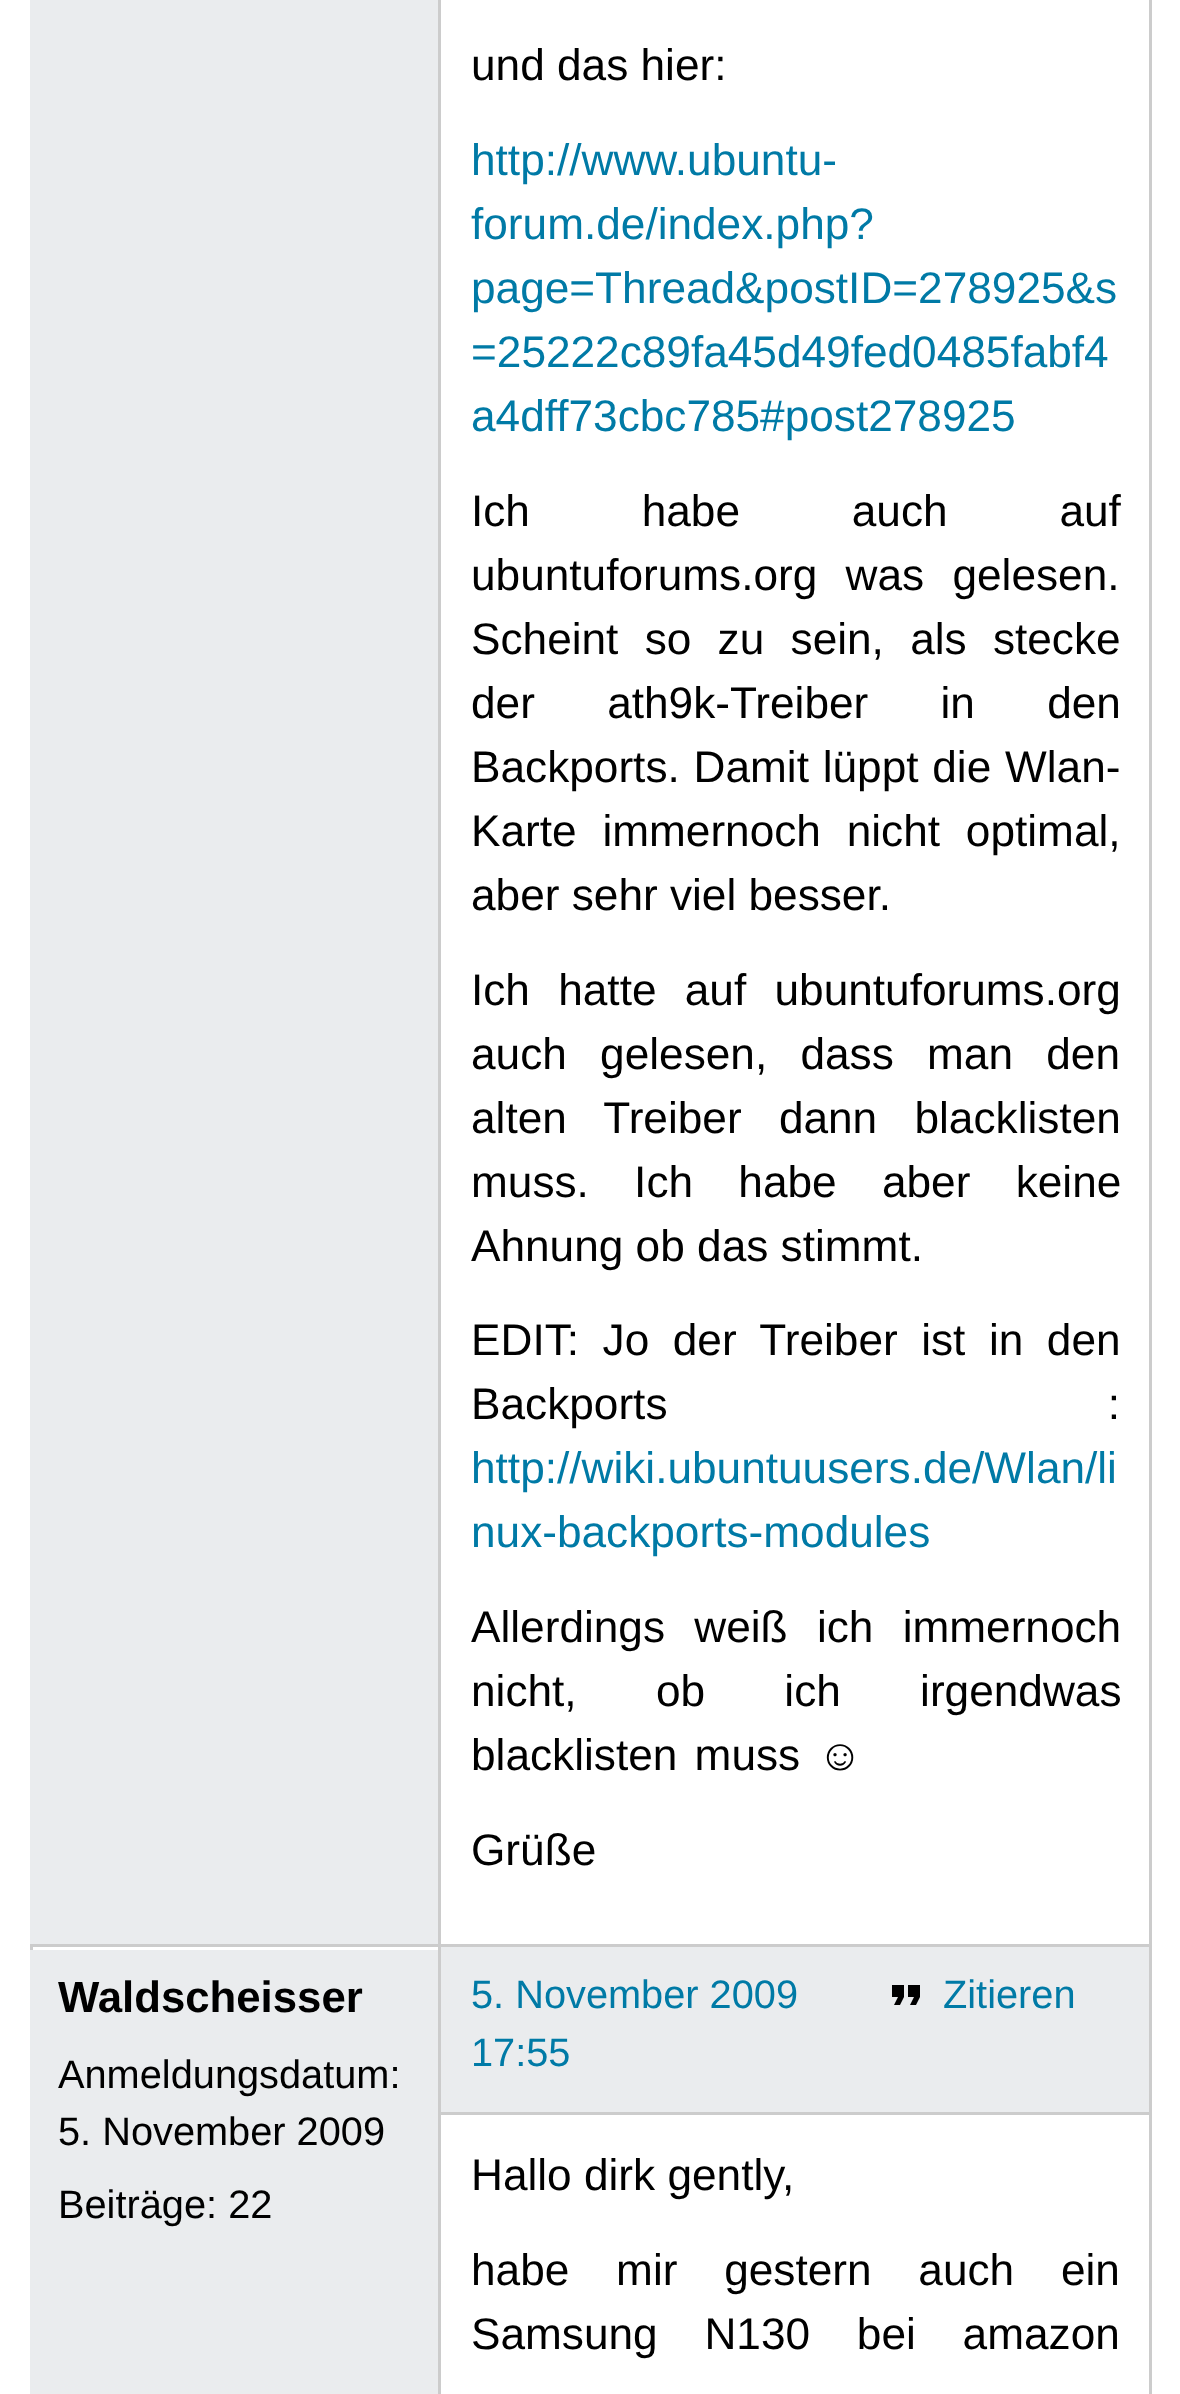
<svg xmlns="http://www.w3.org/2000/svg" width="1180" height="2394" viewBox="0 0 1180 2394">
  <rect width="100%" height="100%" fill="#ffffff"/>
  <rect x="1149" y="0" width="3" height="2394" fill="#cccccc"/>
  <rect x="30" y="1947" width="3" height="3" fill="#cccccc"/>
  <rect x="30" y="0" width="408" height="1944" fill="#eaecee"/>
  <text x="471" y="80" font-family="Liberation Sans" font-size="44.2" fill="#000000">und das hier:</text>
  <text x="471" y="175" font-family="Liberation Sans" font-size="44.2" fill="#007aa6">http://www.ubuntu-</text>
  <text x="471" y="239" font-family="Liberation Sans" font-size="44.2" fill="#007aa6">forum.de/index.php?</text>
  <text x="471" y="303" font-family="Liberation Sans" font-size="44.2" fill="#007aa6">page=Thread&amp;postID=278925&amp;s</text>
  <text x="471" y="367" font-family="Liberation Sans" font-size="44.2" fill="#007aa6">=25222c89fa45d49fed0485fabf4</text>
  <text x="471" y="431" font-family="Liberation Sans" font-size="44.2" fill="#007aa6">a4dff73cbc785#post278925</text>
  <text x="471" y="526" word-spacing="99.5" font-family="Liberation Sans" font-size="44.2" fill="#000000">Ich habe auch auf</text>
  <text x="471" y="590" word-spacing="16" font-family="Liberation Sans" font-size="44.2" fill="#000000">ubuntuforums.org was gelesen.</text>
  <text x="471" y="654" word-spacing="14" font-family="Liberation Sans" font-size="44.2" fill="#000000">Scheint so zu sein, als stecke</text>
  <text x="471" y="718" word-spacing="60" font-family="Liberation Sans" font-size="44.2" fill="#000000">der ath9k-Treiber in den</text>
  <text x="471" y="782" word-spacing="1.5" font-family="Liberation Sans" font-size="44.2" fill="#000000">Backports. Damit lüppt die Wlan-</text>
  <text x="471" y="846" word-spacing="13.5" font-family="Liberation Sans" font-size="44.2" fill="#000000">Karte immernoch nicht optimal,</text>
  <text x="471" y="910" font-family="Liberation Sans" font-size="44.2" fill="#000000">aber sehr viel besser.</text>
  <text x="471" y="1005" word-spacing="16" font-family="Liberation Sans" font-size="44.2" fill="#000000">Ich hatte auf ubuntuforums.org</text>
  <text x="471" y="1069" word-spacing="21" font-family="Liberation Sans" font-size="44.2" fill="#000000">auch gelesen, dass man den</text>
  <text x="471" y="1133" word-spacing="25" font-family="Liberation Sans" font-size="44.2" fill="#000000">alten Treiber dann blacklisten</text>
  <text x="471" y="1197" word-spacing="33" font-family="Liberation Sans" font-size="44.2" fill="#000000">muss. Ich habe aber keine</text>
  <text x="471" y="1261" font-family="Liberation Sans" font-size="44.2" fill="#000000">Ahnung ob das stimmt.</text>
  <text x="471" y="1355" word-spacing="11.25" font-family="Liberation Sans" font-size="44.2" fill="#000000">EDIT: Jo der Treiber ist in den</text>
  <text x="471" y="1419" word-spacing="428" font-family="Liberation Sans" font-size="44.2" fill="#000000">Backports :</text>
  <text x="471" y="1483" font-family="Liberation Sans" font-size="44.2" fill="#007aa6">http://wiki.ubuntuusers.de/Wlan/li</text>
  <text x="471" y="1547" font-family="Liberation Sans" font-size="44.2" fill="#007aa6">nux-backports-modules</text>
  <text x="471" y="1642" word-spacing="17" font-family="Liberation Sans" font-size="44.2" fill="#000000">Allerdings weiß ich immernoch</text>
  <text x="471" y="1706" word-spacing="67" font-family="Liberation Sans" font-size="44.2" fill="#000000">nicht, ob ich irgendwas</text>
  <text x="471" y="1770" word-spacing="5" font-family="Liberation Sans" font-size="44.2" fill="#000000">blacklisten muss ☺</text>
  <text x="471" y="1865" font-family="Liberation Sans" font-size="44.2" fill="#000000">Grüße</text>
  <rect x="30" y="1944" width="1122" height="3" fill="#cccccc"/>
  <rect x="438" y="0" width="3" height="2394" fill="#cccccc"/>
  <rect x="30" y="1950" width="408" height="444" fill="#eaecee"/>
  <text x="58" y="2012" font-family="Liberation Sans" font-size="43.75" font-weight="bold" fill="#000000">Waldscheisser</text>
  <text x="58" y="2088" font-family="Liberation Sans" font-size="39.75" fill="#000000">Anmeldungsdatum:</text>
  <text x="58" y="2145" font-family="Liberation Sans" font-size="39.75" fill="#000000">5. November 2009</text>
  <text x="58" y="2218" font-family="Liberation Sans" font-size="39.75" fill="#000000">Beiträge: 22</text>
  <rect x="441" y="1947" width="708" height="165" fill="#eaecee"/>
  <rect x="441" y="2112" width="708" height="3" fill="#cccccc"/>
  <text x="471" y="2008" font-family="Liberation Sans" font-size="39.75" fill="#007aa6">5. November 2009</text>
  <image x="892" y="1985" width="28" height="20" href="img1.png"/>
  <text x="943" y="2008" font-family="Liberation Sans" font-size="39.75" fill="#007aa6">Zitieren</text>
  <text x="471" y="2066" font-family="Liberation Sans" font-size="39.75" fill="#007aa6">17:55</text>
  <text x="471" y="2190" font-family="Liberation Sans" font-size="44.2" fill="#000000">Hallo dirk gently,</text>
  <text x="471" y="2285" word-spacing="34.5" font-family="Liberation Sans" font-size="44.2" fill="#000000">habe mir gestern auch ein</text>
  <text x="471" y="2349" word-spacing="34.5" font-family="Liberation Sans" font-size="44.2" fill="#000000">Samsung N130 bei amazon</text>
</svg>
